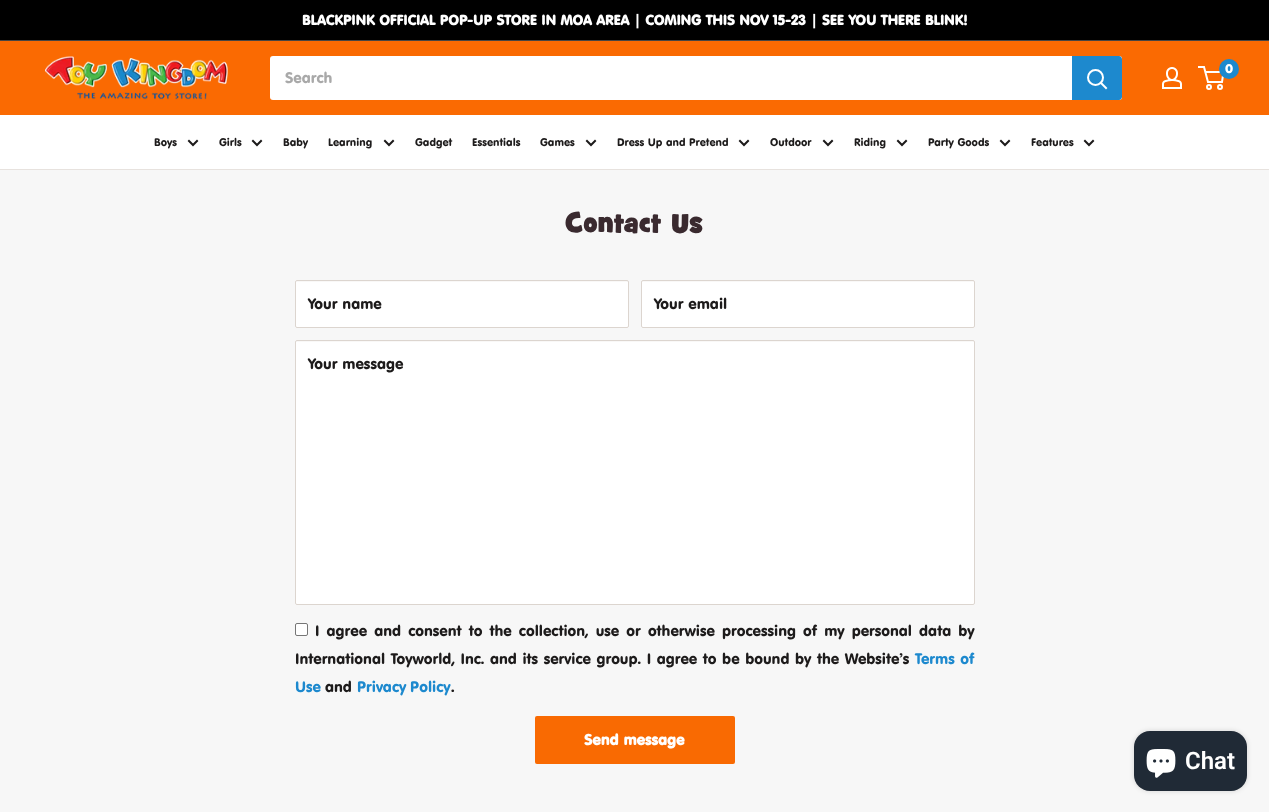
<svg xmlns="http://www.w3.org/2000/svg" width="1269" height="812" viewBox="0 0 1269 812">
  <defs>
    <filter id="blur1" x="-50%" y="-200%" width="200%" height="500%"><feGaussianBlur stdDeviation="2.5"/></filter>
  </defs>
  <rect width="100%" height="100%" fill="#f7f7f7"/>
  <rect x="0" y="0" width="1269" height="40" fill="#000000"/>
  <rect x="0" y="40" width="1269" height="1" fill="#464442"/>
  <text x="302" y="25" font-family="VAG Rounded" font-size="14" font-weight="bold" fill="#ffffff">BLACKPINK OFFICIAL POP-UP STORE IN MOA AREA | COMING THIS NOV 15-23 | SEE YOU THERE BLINK!</text>
  <rect x="0" y="41" width="1269" height="74" fill="#fa6a02"/>
  <image x="45" y="56" width="183" height="44" href="img1.png"/>
  <image x="1162" y="67" width="20" height="22" href="img2.png"/>
  <circle cx="1209" cy="87" r="2" fill="none" stroke="#ffffff" stroke-width="2"/>
  <circle cx="1220" cy="87" r="2" fill="none" stroke="#ffffff" stroke-width="2"/>
  <path d="M1205.5 72H1223.5L1222 82H1208L1204 67H1198" fill="none" stroke="#ffffff" stroke-width="2"/>
  <circle cx="1229" cy="69" r="10" fill="#1d89ce"/>
  <text x="1225" y="73" font-family="VAG Rounded" font-size="12" font-weight="bold" fill="#ffffff">0</text>
  <rect x="270" y="56" width="852" height="44" rx="3" fill="#ffffff"/>
  <text x="285" y="83" font-family="VAG Rounded" font-size="15" fill="#a9a9a9">Search</text>
  <path d="M1072 56H1119C1120.5 56 1122 57.5 1122 59V97C1122 98.5 1120.5 100 1119 100H1072Z" fill="#1d89ce"/>
  <path d="M1106 88L1101 83" fill="none" stroke="#ffffff" stroke-width="2" stroke-linecap="square"/>
  <circle cx="1095.5" cy="77.5" r="7.5" fill="none" stroke="#ffffff" stroke-width="2"/>
  <rect x="0" y="115" width="1269" height="54" fill="#ffffff"/>
  <rect x="0" y="169" width="1269" height="1" fill="#e7e2de"/>
  <text x="154" y="146" font-family="VAG Rounded" font-size="10.9" fill="#1d1b1b">Boys</text>
  <path d="M197 141L193 145L189 141" fill="none" stroke="#1d1b1b" stroke-width="2" stroke-linecap="square"/>
  <text x="219" y="146" font-family="VAG Rounded" font-size="10.9" fill="#1d1b1b">Girls</text>
  <path d="M261 141L257 145L253 141" fill="none" stroke="#1d1b1b" stroke-width="2" stroke-linecap="square"/>
  <text x="283" y="146" font-family="VAG Rounded" font-size="10.9" fill="#1d1b1b">Baby</text>
  <text x="328" y="146" font-family="VAG Rounded" font-size="10.9" fill="#1d1b1b">Learning</text>
  <path d="M393 141L389 145L385 141" fill="none" stroke="#1d1b1b" stroke-width="2" stroke-linecap="square"/>
  <text x="415" y="146" font-family="VAG Rounded" font-size="10.9" fill="#1d1b1b">Gadget</text>
  <text x="472" y="146" font-family="VAG Rounded" font-size="10.9" fill="#1d1b1b">Essentials</text>
  <text x="540" y="146" font-family="VAG Rounded" font-size="10.9" fill="#1d1b1b">Games</text>
  <path d="M595 141L591 145L587 141" fill="none" stroke="#1d1b1b" stroke-width="2" stroke-linecap="square"/>
  <text x="617" y="146" font-family="VAG Rounded" font-size="10.9" fill="#1d1b1b">Dress Up and Pretend</text>
  <path d="M748 141L744 145L740 141" fill="none" stroke="#1d1b1b" stroke-width="2" stroke-linecap="square"/>
  <text x="770" y="146" font-family="VAG Rounded" font-size="10.9" fill="#1d1b1b">Outdoor</text>
  <path d="M832 141L828 145L824 141" fill="none" stroke="#1d1b1b" stroke-width="2" stroke-linecap="square"/>
  <text x="854" y="146" font-family="VAG Rounded" font-size="10.9" fill="#1d1b1b">Riding</text>
  <path d="M906 141L902 145L898 141" fill="none" stroke="#1d1b1b" stroke-width="2" stroke-linecap="square"/>
  <text x="928" y="146" font-family="VAG Rounded" font-size="10.9" fill="#1d1b1b">Party Goods</text>
  <path d="M1009 141L1005 145L1001 141" fill="none" stroke="#1d1b1b" stroke-width="2" stroke-linecap="square"/>
  <text x="1031" y="146" font-family="VAG Rounded" font-size="10.9" fill="#1d1b1b">Features</text>
  <path d="M1093 141L1089 145L1085 141" fill="none" stroke="#1d1b1b" stroke-width="2" stroke-linecap="square"/>
  <text x="565" y="232" font-family="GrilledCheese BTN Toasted" font-size="28" fill="#3a2a2f">Contact Us</text>
  <rect x="295" y="280" width="334" height="48" rx="2" fill="#ffffff"/>
  <path d="M297 282H627C628 282 628 282 628 283V281H462H297L296 282V283C296 282 296 282 297 282Z" fill="#f9f8f7"/>
  <rect x="295.5" y="280.5" width="333" height="47" rx="1.5" fill="none" stroke="#dcd5cf"/>
  <text x="308" y="309" font-family="VAG Rounded" font-size="15" fill="#1d1b1b">Your name</text>
  <rect x="641" y="280" width="334" height="48" rx="2" fill="#ffffff"/>
  <path d="M643 282H973C974 282 974 282 974 283V282L973 281H642V283C642 282 642 282 643 282Z" fill="#f9f8f7"/>
  <rect x="641.5" y="280.5" width="333" height="47" rx="1.5" fill="none" stroke="#dcd5cf"/>
  <text x="654" y="309" font-family="VAG Rounded" font-size="15" fill="#1d1b1b">Your email</text>
  <rect x="295" y="340" width="680" height="265" rx="2" fill="#ffffff"/>
  <path d="M297 342H973C974 342 974 342 974 343C974 342 974 341 973 341H297C296 341 296 342 296 343C296 342 296 342 297 342Z" fill="#f9f8f7"/>
  <rect x="295.5" y="340.5" width="679" height="264" rx="1.5" fill="none" stroke="#dcd5cf"/>
  <text x="308" y="369" font-family="VAG Rounded" font-size="15" fill="#1d1b1b">Your message</text>
  <rect x="295.5" y="623.5" width="12" height="12" rx="1.5" fill="#ffffff" stroke="#767676"/>
  <text x="315" y="636" word-spacing="2.25" font-family="VAG Rounded" font-size="15" fill="#1d1b1b">I agree and consent to the collection, use or otherwise processing of my personal data by</text>
  <text x="295" y="664" word-spacing="0.75" font-family="VAG Rounded" font-size="15" fill="#1d1b1b">International Toyworld, Inc. and its service group. I agree to be bound by the Website’s</text>
  <text x="915" y="664" word-spacing="0.75" font-family="VAG Rounded" font-size="15" fill="#1d89ce">Terms of</text>
  <text x="295" y="692" font-family="VAG Rounded" font-size="15" fill="#1d89ce">Use</text>
  <text x="325" y="692" font-family="VAG Rounded" font-size="15" fill="#1d1b1b">and</text>
  <text x="357" y="692" word-spacing="-1" font-family="VAG Rounded" font-size="15" fill="#1d89ce">Privacy Policy</text>
  <text x="451" y="692" font-family="VAG Rounded" font-size="15" fill="#1d1b1b">.</text>
  <rect x="535" y="716" width="200" height="48" rx="2" fill="#f96a02"/>
  <text x="584" y="745" font-family="VAG Rounded" font-size="15" font-weight="bold" fill="#ffffff">Send message</text>
  <rect x="1134" y="731" width="113" height="60" rx="16" fill="#000000" fill-opacity="0.15" filter="url(#blur1)"/>
  <rect x="1134" y="731" width="113" height="60" rx="16" fill="#202a36"/>
  <image x="1146" y="749" width="30" height="29" href="img3.png"/>
  <text x="1185" y="769" font-family="Roboto" font-size="24" font-weight="600" fill="#ffffff">Chat</text>
</svg>
